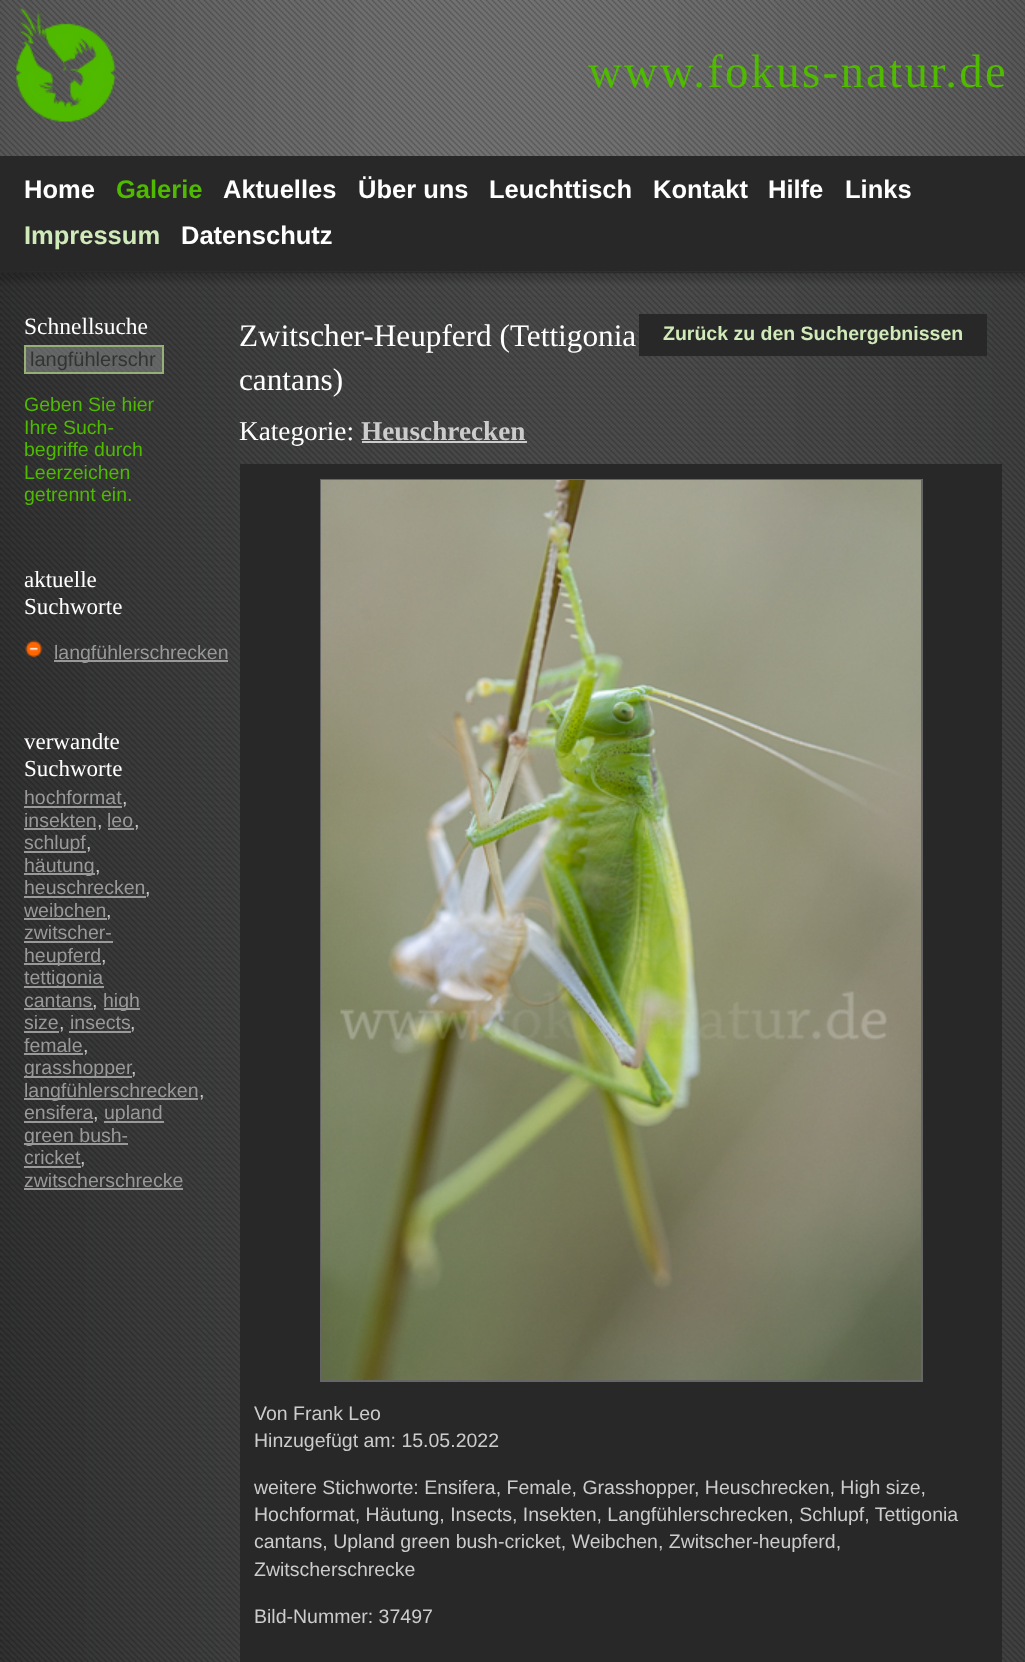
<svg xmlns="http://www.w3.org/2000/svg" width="1025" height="1662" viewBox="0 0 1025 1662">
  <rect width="100%" height="100%" fill="#ffffff"/>
  <image x="0" y="0" width="1025" height="156" href="img1.png"/>
  <image x="16" y="7" width="100" height="115" href="img2.png"/>
  <text x="588" y="87" font-family="Liberation Serif" font-size="46.75" letter-spacing="2.3" fill="#4fba00">www.fokus-natur.de</text>
  <rect x="0" y="156" width="1025" height="116" fill="#282828"/>
  <text x="24" y="198" font-family="Liberation Sans" font-size="25.5" font-weight="bold" fill="#ffffff">Home</text>
  <text x="116" y="198" font-family="Liberation Sans" font-size="25.5" font-weight="bold" fill="#4fba00">Galerie</text>
  <text x="223" y="198" font-family="Liberation Sans" font-size="25.5" font-weight="bold" fill="#ffffff">Aktuelles</text>
  <text x="358" y="198" font-family="Liberation Sans" font-size="25.5" font-weight="bold" fill="#ffffff">Über uns</text>
  <text x="489" y="198" font-family="Liberation Sans" font-size="25.5" font-weight="bold" fill="#ffffff">Leuchttisch</text>
  <text x="653" y="198" font-family="Liberation Sans" font-size="25.5" font-weight="bold" fill="#ffffff">Kontakt</text>
  <text x="768" y="198" font-family="Liberation Sans" font-size="25.5" font-weight="bold" fill="#ffffff">Hilfe</text>
  <text x="845" y="198" font-family="Liberation Sans" font-size="25.5" font-weight="bold" fill="#ffffff">Links</text>
  <text x="24" y="244" font-family="Liberation Sans" font-size="25.5" font-weight="bold" fill="#d1eab9">Impressum</text>
  <text x="181" y="244" font-family="Liberation Sans" font-size="25.5" font-weight="bold" fill="#ffffff">Datenschutz</text>
  <image x="0" y="271" width="1025" height="1391" href="img3.png"/>
  <image x="0" y="271" width="1025" height="19" href="img4.png"/>
  <text x="24" y="334" font-family="Liberation Serif" font-size="23.5" fill="#ffffff">Schnellsuche</text>
  <image x="26" y="347" width="136" height="25" href="img5.png"/>
  <rect x="25" y="346" width="138" height="27" fill="none" stroke="#95af77" stroke-width="2"/>
  <text x="30" y="366" font-family="Liberation Sans" font-size="20" fill="#333333">langfühlerschr</text>
  <text x="24" y="411" font-family="Liberation Sans" font-size="19.5" fill="#4fba00">Geben Sie hier</text>
  <text x="24" y="434" font-family="Liberation Sans" font-size="19.5" fill="#4fba00">Ihre Such-</text>
  <text x="24" y="456" font-family="Liberation Sans" font-size="19.5" fill="#4fba00">begriffe durch</text>
  <text x="24" y="479" font-family="Liberation Sans" font-size="19.5" fill="#4fba00">Leerzeichen</text>
  <text x="24" y="501" font-family="Liberation Sans" font-size="19.5" fill="#4fba00">getrennt ein.</text>
  <text x="24" y="587" font-family="Liberation Serif" font-size="23" fill="#ffffff">aktuelle</text>
  <text x="24" y="614" font-family="Liberation Serif" font-size="23" fill="#ffffff">Suchworte</text>
  <image x="25" y="640" width="18" height="18" href="img6.png"/>
  <rect x="54" y="660" width="174" height="2" fill="#999999"/>
  <text x="54" y="659" font-family="Liberation Sans" font-size="19.5" fill="#999999">langfühlerschrecken</text>
  <text x="24" y="749" font-family="Liberation Serif" font-size="23" fill="#ffffff">verwandte</text>
  <text x="24" y="776" font-family="Liberation Serif" font-size="23" fill="#ffffff">Suchworte</text>
  <text x="24" y="804" font-family="Liberation Sans" font-size="19.5" fill="#999999">hochformat</text>
  <rect x="24" y="806" width="98" height="2" fill="#999999"/>
  <text x="122" y="804" font-family="Liberation Sans" font-size="19.5" fill="#cccccc">,</text>
  <text x="24" y="827" font-family="Liberation Sans" font-size="19.5" fill="#999999">insekten</text>
  <rect x="24" y="828" width="72" height="2" fill="#999999"/>
  <text x="97" y="827" font-family="Liberation Sans" font-size="19.5" fill="#cccccc">,</text>
  <text x="107" y="827" font-family="Liberation Sans" font-size="19.5" fill="#999999">leo</text>
  <rect x="108" y="828" width="26" height="2" fill="#999999"/>
  <text x="134" y="827" font-family="Liberation Sans" font-size="19.5" fill="#cccccc">,</text>
  <rect x="24" y="851" width="62" height="2" fill="#999999"/>
  <text x="24" y="849" font-family="Liberation Sans" font-size="19.5" fill="#999999">schlupf</text>
  <text x="86" y="849" font-family="Liberation Sans" font-size="19.5" fill="#cccccc">,</text>
  <rect x="24" y="873" width="71" height="2" fill="#999999"/>
  <text x="24" y="872" font-family="Liberation Sans" font-size="19.5" fill="#999999">häutung</text>
  <text x="95" y="872" font-family="Liberation Sans" font-size="19.5" fill="#cccccc">,</text>
  <text x="24" y="894" font-family="Liberation Sans" font-size="19.5" fill="#999999">heuschrecken</text>
  <rect x="24" y="896" width="122" height="2" fill="#999999"/>
  <text x="145" y="894" font-family="Liberation Sans" font-size="19.5" fill="#cccccc">,</text>
  <text x="24" y="917" font-family="Liberation Sans" font-size="19.5" fill="#999999">weibchen</text>
  <rect x="24" y="918" width="83" height="2" fill="#999999"/>
  <text x="106" y="917" font-family="Liberation Sans" font-size="19.5" fill="#cccccc">,</text>
  <text x="24" y="939" font-family="Liberation Sans" font-size="19.5" fill="#999999">zwitscher-</text>
  <rect x="24" y="941" width="89" height="2" fill="#999999"/>
  <rect x="24" y="963" width="77" height="2" fill="#999999"/>
  <text x="24" y="962" font-family="Liberation Sans" font-size="19.5" fill="#999999">heupferd</text>
  <text x="101" y="962" font-family="Liberation Sans" font-size="19.5" fill="#cccccc">,</text>
  <rect x="24" y="986" width="80" height="2" fill="#999999"/>
  <text x="24" y="984" font-family="Liberation Sans" font-size="19.5" fill="#999999">tettigonia</text>
  <text x="24" y="1007" font-family="Liberation Sans" font-size="19.5" fill="#999999">cantans</text>
  <rect x="24" y="1008" width="69" height="2" fill="#999999"/>
  <text x="92" y="1007" font-family="Liberation Sans" font-size="19.5" fill="#cccccc">,</text>
  <rect x="104" y="1008" width="36" height="2" fill="#999999"/>
  <text x="103" y="1007" font-family="Liberation Sans" font-size="19.5" fill="#999999">high</text>
  <text x="24" y="1029" font-family="Liberation Sans" font-size="19.5" fill="#999999">size</text>
  <rect x="24" y="1031" width="35" height="2" fill="#999999"/>
  <text x="59" y="1029" font-family="Liberation Sans" font-size="19.5" fill="#cccccc">,</text>
  <text x="70" y="1029" font-family="Liberation Sans" font-size="19.5" fill="#999999">insects</text>
  <rect x="69" y="1031" width="62" height="2" fill="#999999"/>
  <text x="130" y="1029" font-family="Liberation Sans" font-size="19.5" fill="#cccccc">,</text>
  <text x="24" y="1052" font-family="Liberation Sans" font-size="19.5" fill="#999999">female</text>
  <rect x="24" y="1053" width="59" height="2" fill="#999999"/>
  <text x="83" y="1052" font-family="Liberation Sans" font-size="19.5" fill="#cccccc">,</text>
  <rect x="24" y="1076" width="108" height="2" fill="#999999"/>
  <text x="24" y="1074" font-family="Liberation Sans" font-size="19.5" fill="#999999">grasshopper</text>
  <text x="131" y="1074" font-family="Liberation Sans" font-size="19.5" fill="#cccccc">,</text>
  <rect x="24" y="1098" width="174" height="2" fill="#999999"/>
  <text x="24" y="1097" font-family="Liberation Sans" font-size="19.5" fill="#999999">langfühlerschrecken</text>
  <text x="199" y="1097" font-family="Liberation Sans" font-size="19.5" fill="#cccccc">,</text>
  <text x="24" y="1119" font-family="Liberation Sans" font-size="19.5" fill="#999999">ensifera</text>
  <rect x="24" y="1121" width="69" height="2" fill="#999999"/>
  <text x="93" y="1119" font-family="Liberation Sans" font-size="19.5" fill="#cccccc">,</text>
  <rect x="104" y="1121" width="60" height="2" fill="#999999"/>
  <text x="104" y="1119" font-family="Liberation Sans" font-size="19.5" fill="#999999">upland</text>
  <rect x="24" y="1143" width="104" height="2" fill="#999999"/>
  <text x="24" y="1142" font-family="Liberation Sans" font-size="19.5" fill="#999999">green bush-</text>
  <text x="24" y="1164" font-family="Liberation Sans" font-size="19.5" fill="#999999">cricket</text>
  <rect x="24" y="1166" width="57" height="2" fill="#999999"/>
  <text x="80" y="1164" font-family="Liberation Sans" font-size="19.5" fill="#cccccc">,</text>
  <text x="24" y="1187" font-family="Liberation Sans" font-size="19.5" fill="#999999">zwitscherschrecke</text>
  <rect x="24" y="1188" width="159" height="2" fill="#999999"/>
  <text x="239" y="346" font-family="Liberation Serif" font-size="31.25" fill="#ffffff">Zwitscher-Heupferd (Tettigonia</text>
  <text x="239" y="390" font-family="Liberation Serif" font-size="31.25" fill="#ffffff">cantans)</text>
  <text x="239" y="440" font-family="Liberation Serif" font-size="27.25" fill="#ffffff">Kategorie:</text>
  <text x="361" y="440" font-family="Liberation Serif" font-size="27.25" font-weight="bold" fill="#cccccc">Heuschrecken</text>
  <rect x="362" y="441" width="165" height="2" fill="#cccccc"/>
  <rect x="240" y="464" width="762" height="1198" fill="#282828"/>
  <rect x="321" y="480" width="601" height="901" fill="none" stroke="#666666" stroke-width="2"/>
  <image x="321" y="480" width="600" height="900" href="img7.png"/>
  <text x="254" y="1420" font-family="Liberation Sans" font-size="19.5" fill="#cccccc">Von Frank Leo</text>
  <text x="254" y="1447" font-family="Liberation Sans" font-size="19.5" fill="#cccccc">Hinzugefügt am: 15.05.2022</text>
  <text x="254" y="1494" font-family="Liberation Sans" font-size="19.5" fill="#cccccc">weitere Stichworte: Ensifera, Female, Grasshopper, Heuschrecken, High size,</text>
  <text x="254" y="1521" font-family="Liberation Sans" font-size="19.5" fill="#cccccc">Hochformat, Häutung, Insects, Insekten, Langfühlerschrecken, Schlupf, Tettigonia</text>
  <text x="254" y="1548" font-family="Liberation Sans" font-size="19.5" fill="#cccccc">cantans, Upland green bush-cricket, Weibchen, Zwitscher-heupferd,</text>
  <text x="254" y="1576" font-family="Liberation Sans" font-size="19.5" fill="#cccccc">Zwitscherschrecke</text>
  <text x="254" y="1623" font-family="Liberation Sans" font-size="19.5" fill="#cccccc">Bild-Nummer: 37497</text>
  <rect x="639" y="314" width="348" height="42" fill="#282828"/>
  <text x="663" y="340" font-family="Liberation Sans" font-size="19.5" font-weight="bold" fill="#d1eab9">Zurück zu den Suchergebnissen</text>
</svg>
